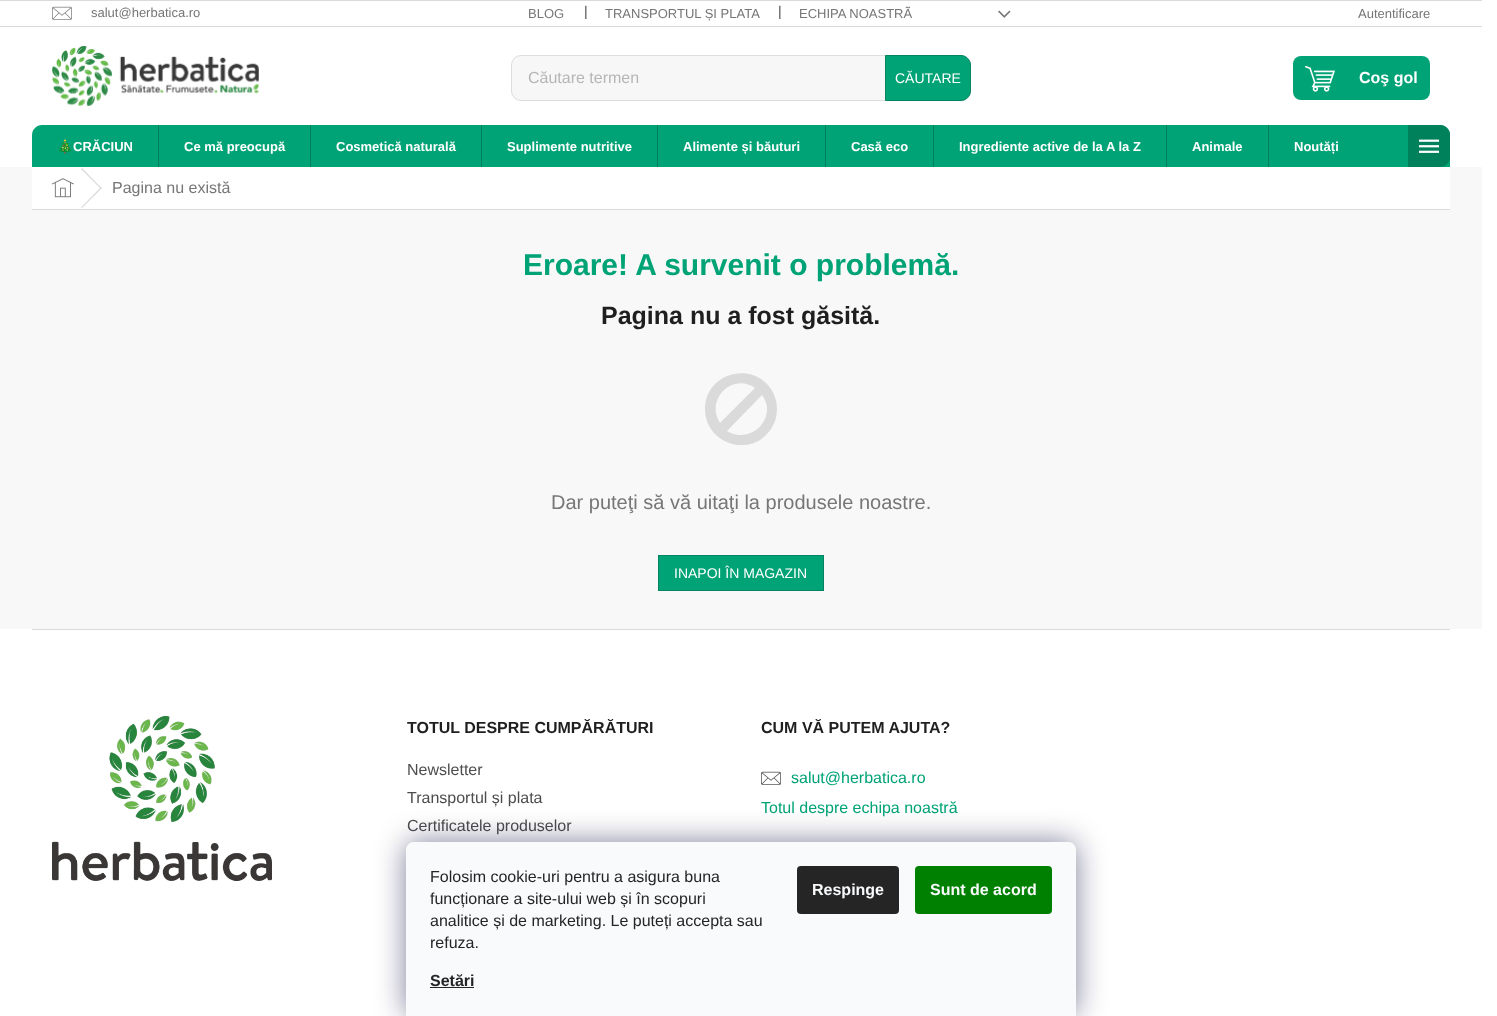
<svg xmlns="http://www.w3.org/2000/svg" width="1497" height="1016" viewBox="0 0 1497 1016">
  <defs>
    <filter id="blur1" x="-50%" y="-200%" width="200%" height="500%"><feGaussianBlur stdDeviation="15"/></filter>
  </defs>
  <rect width="100%" height="100%" fill="#ffffff"/>
  <rect x="0" y="167" width="1482" height="462" fill="#f8f8f8"/>
  <rect x="0" y="0" width="1482" height="1" fill="#dadada"/>
  <rect x="0" y="26" width="1482" height="1" fill="#dadada"/>
  <image x="52" y="6" width="20" height="14" href="img1.png"/>
  <text x="91" y="17" font-family="Liberation Sans" font-size="13" fill="#767676">salut@herbatica.ro</text>
  <text x="528" y="18" font-family="Liberation Sans" font-size="13" fill="#767676">BLOG</text>
  <text x="584" y="16" font-family="Liberation Sans" font-size="14" fill="#4d4d4d">|</text>
  <text x="605" y="18" font-family="Liberation Sans" font-size="13" fill="#767676">TRANSPORTUL ȘI PLATA</text>
  <text x="778" y="16" font-family="Liberation Sans" font-size="14" fill="#4d4d4d">|</text>
  <text x="799" y="18" font-family="Liberation Sans" font-size="13" fill="#767676">ECHIPA NOASTRÃ</text>
  <image x="998" y="10" width="13" height="8" href="img2.png"/>
  <text x="1358" y="18" font-family="Liberation Sans" font-size="13" fill="#767676">Autentificare</text>
  <image x="52" y="46" width="207" height="60" href="img3.png"/>
  <rect x="511.5" y="55.5" width="459" height="45" rx="9.5" fill="#f7f7f8" stroke="#dddddd"/>
  <text x="528" y="83" font-family="Liberation Sans" font-size="16" fill="#b6b6b6">Căutare termen</text>
  <path d="M885.5 55.5H961C966 55.5 970.5 60 970.5 65V91C970.5 96 966 100.5 961 100.5H885.5Z" fill="#00a376" stroke="#068361"/>
  <text x="895" y="83" font-family="Liberation Sans" font-size="14" fill="#ffffff">CĂUTARE</text>
  <rect x="1293" y="56" width="137" height="44" rx="8" fill="#00a376"/>
  <image x="1305" y="66" width="30" height="26" href="img4.png"/>
  <text x="1359" y="83" font-family="Liberation Sans" font-size="16" font-weight="bold" fill="#ffffff">Coş gol</text>
  <path d="M42 125H1440C1445.5 125 1450 129.5 1450 135V167H32V135C32 129.5 36.5 125 42 125Z" fill="#00a376"/>
  <text x="57" y="151" font-family="Noto Color Emoji" font-size="13" font-weight="bold" fill="#ffffff">🎄</text>
  <text x="73" y="151" font-family="Liberation Sans" font-size="13" font-weight="bold" fill="#ffffff">CRĂCIUN</text>
  <rect x="158" y="125" width="1" height="42" fill="#00805b"/>
  <text x="184" y="151" font-family="Liberation Sans" font-size="13" font-weight="bold" fill="#ffffff">Ce mă preocupă</text>
  <rect x="310" y="125" width="1" height="42" fill="#00805b"/>
  <text x="336" y="151" font-family="Liberation Sans" font-size="13" font-weight="bold" fill="#ffffff">Cosmetică naturală</text>
  <rect x="481" y="125" width="1" height="42" fill="#00805b"/>
  <text x="507" y="151" font-family="Liberation Sans" font-size="13" font-weight="bold" fill="#ffffff">Suplimente nutritive</text>
  <rect x="657" y="125" width="1" height="42" fill="#00805b"/>
  <text x="683" y="151" font-family="Liberation Sans" font-size="13" font-weight="bold" fill="#ffffff">Alimente și băuturi</text>
  <rect x="825" y="125" width="1" height="42" fill="#00805b"/>
  <text x="851" y="151" font-family="Liberation Sans" font-size="13" font-weight="bold" fill="#ffffff">Casă eco</text>
  <rect x="933" y="125" width="1" height="42" fill="#00805b"/>
  <text x="959" y="151" font-family="Liberation Sans" font-size="13" font-weight="bold" fill="#ffffff">Ingrediente active de la A la Z</text>
  <rect x="1166" y="125" width="1" height="42" fill="#00805b"/>
  <text x="1192" y="151" font-family="Liberation Sans" font-size="13" font-weight="bold" fill="#ffffff">Animale</text>
  <rect x="1268" y="125" width="1" height="42" fill="#00805b"/>
  <text x="1294" y="151" font-family="Liberation Sans" font-size="13" font-weight="bold" fill="#ffffff">Noutăți</text>
  <path d="M1408 125H1440C1445.5 125 1450 129.5 1450 135V157C1450 162.5 1445.5 167 1440 167H1408Z" fill="#00805b"/>
  <image x="1419" y="139" width="20" height="14" href="img5.png"/>
  <rect x="32" y="167" width="1418" height="42" fill="#ffffff"/>
  <rect x="32" y="209" width="1418" height="1" fill="#dadada"/>
  <image x="52" y="178" width="22" height="20" href="img6.png"/>
  <path d="M81 169L82 168L102 188.5L101 189Z" fill="#dadada"/>
  <path d="M101 187L102 188L82 208L81 207.5Z" fill="#dadada"/>
  <text x="112" y="193" font-family="Liberation Sans" font-size="16" fill="#767676">Pagina nu există</text>
  <text x="523" y="275" font-family="Liberation Sans" font-size="30" font-weight="bold" fill="#00a376">Eroare! A survenit o problemă.</text>
  <text x="601" y="324" font-family="Liberation Sans" font-size="25" font-weight="bold" fill="#1f1f1f">Pagina nu a fost găsită.</text>
  <path d="M767 409C767 404 765 399 762 395L727 431C744 442 767 429 767 409ZM720 423L755 388C732 372 705 400 720 423ZM777 409C777 416 775 423 771 429C751 459 705 444 705 409C705 374 751 360 771 389C775 395 777 402 777 409Z" fill="#dadada"/>
  <text x="551" y="509" font-family="Liberation Sans" font-size="20" fill="#767676">Dar puteţi să vă uitaţi la produsele noastre.</text>
  <rect x="658.5" y="555.5" width="165" height="35" fill="#00a376" stroke="#068361"/>
  <text x="674" y="578" font-family="Liberation Sans" font-size="14" fill="#ffffff">INAPOI ÎN MAGAZIN</text>
  <rect x="32" y="629" width="1418" height="1" fill="#dadada"/>
  <image x="52" y="716" width="220" height="165" href="img7.png"/>
  <text x="407" y="733" font-family="Liberation Sans" font-size="16" font-weight="bold" fill="#1f1f1f">TOTUL DESPRE CUMPĂRĂTURI</text>
  <text x="407" y="775" font-family="Liberation Sans" font-size="16" fill="#4d4d4d">Newsletter</text>
  <text x="407" y="803" font-family="Liberation Sans" font-size="16" fill="#4d4d4d">Transportul și plata</text>
  <text x="407" y="831" font-family="Liberation Sans" font-size="16" fill="#4d4d4d">Certificatele produselor</text>
  <text x="761" y="733" font-family="Liberation Sans" font-size="16" font-weight="bold" fill="#1f1f1f">CUM VĂ PUTEM AJUTA?</text>
  <image x="761" y="771" width="20" height="14" href="img8.png"/>
  <text x="791" y="783" font-family="Liberation Sans" font-size="16" fill="#00a376">salut@herbatica.ro</text>
  <text x="761" y="813" font-family="Liberation Sans" font-size="16" fill="#00a376">Totul despre echipa noastră</text>
  <rect x="406" y="842" width="670" height="174" rx="8" fill="#1b1939" fill-opacity="0.5" filter="url(#blur1)"/>
  <path d="M414 842H1068C1072.5 842 1076 845.5 1076 850V1016H406V850C406 845.5 409.5 842 414 842Z" fill="#f8fafb"/>
  <text x="430" y="882" font-family="Liberation Sans" font-size="16" fill="#252525">Folosim cookie-uri pentru a asigura buna</text>
  <text x="430" y="904" font-family="Liberation Sans" font-size="16" fill="#252525">funcționare a site-ului web și în scopuri</text>
  <text x="430" y="926" font-family="Liberation Sans" font-size="16" fill="#252525">analitice și de marketing. Le puteți accepta sau</text>
  <text x="430" y="948" font-family="Liberation Sans" font-size="16" fill="#252525">refuza.</text>
  <text x="430" y="986" font-family="Liberation Sans" font-size="16" font-weight="bold" fill="#252525">Setări</text>
  <rect x="430" y="987" width="44" height="1" fill="#252525"/>
  <rect x="797" y="866" width="102" height="48" rx="4" fill="#252525"/>
  <text x="812" y="895" font-family="Liberation Sans" font-size="16" font-weight="bold" fill="#f8fafb">Respinge</text>
  <rect x="915" y="866" width="137" height="48" rx="4" fill="#008000"/>
  <text x="930" y="895" font-family="Liberation Sans" font-size="16" font-weight="bold" fill="#f8fafb">Sunt de acord</text>
</svg>
